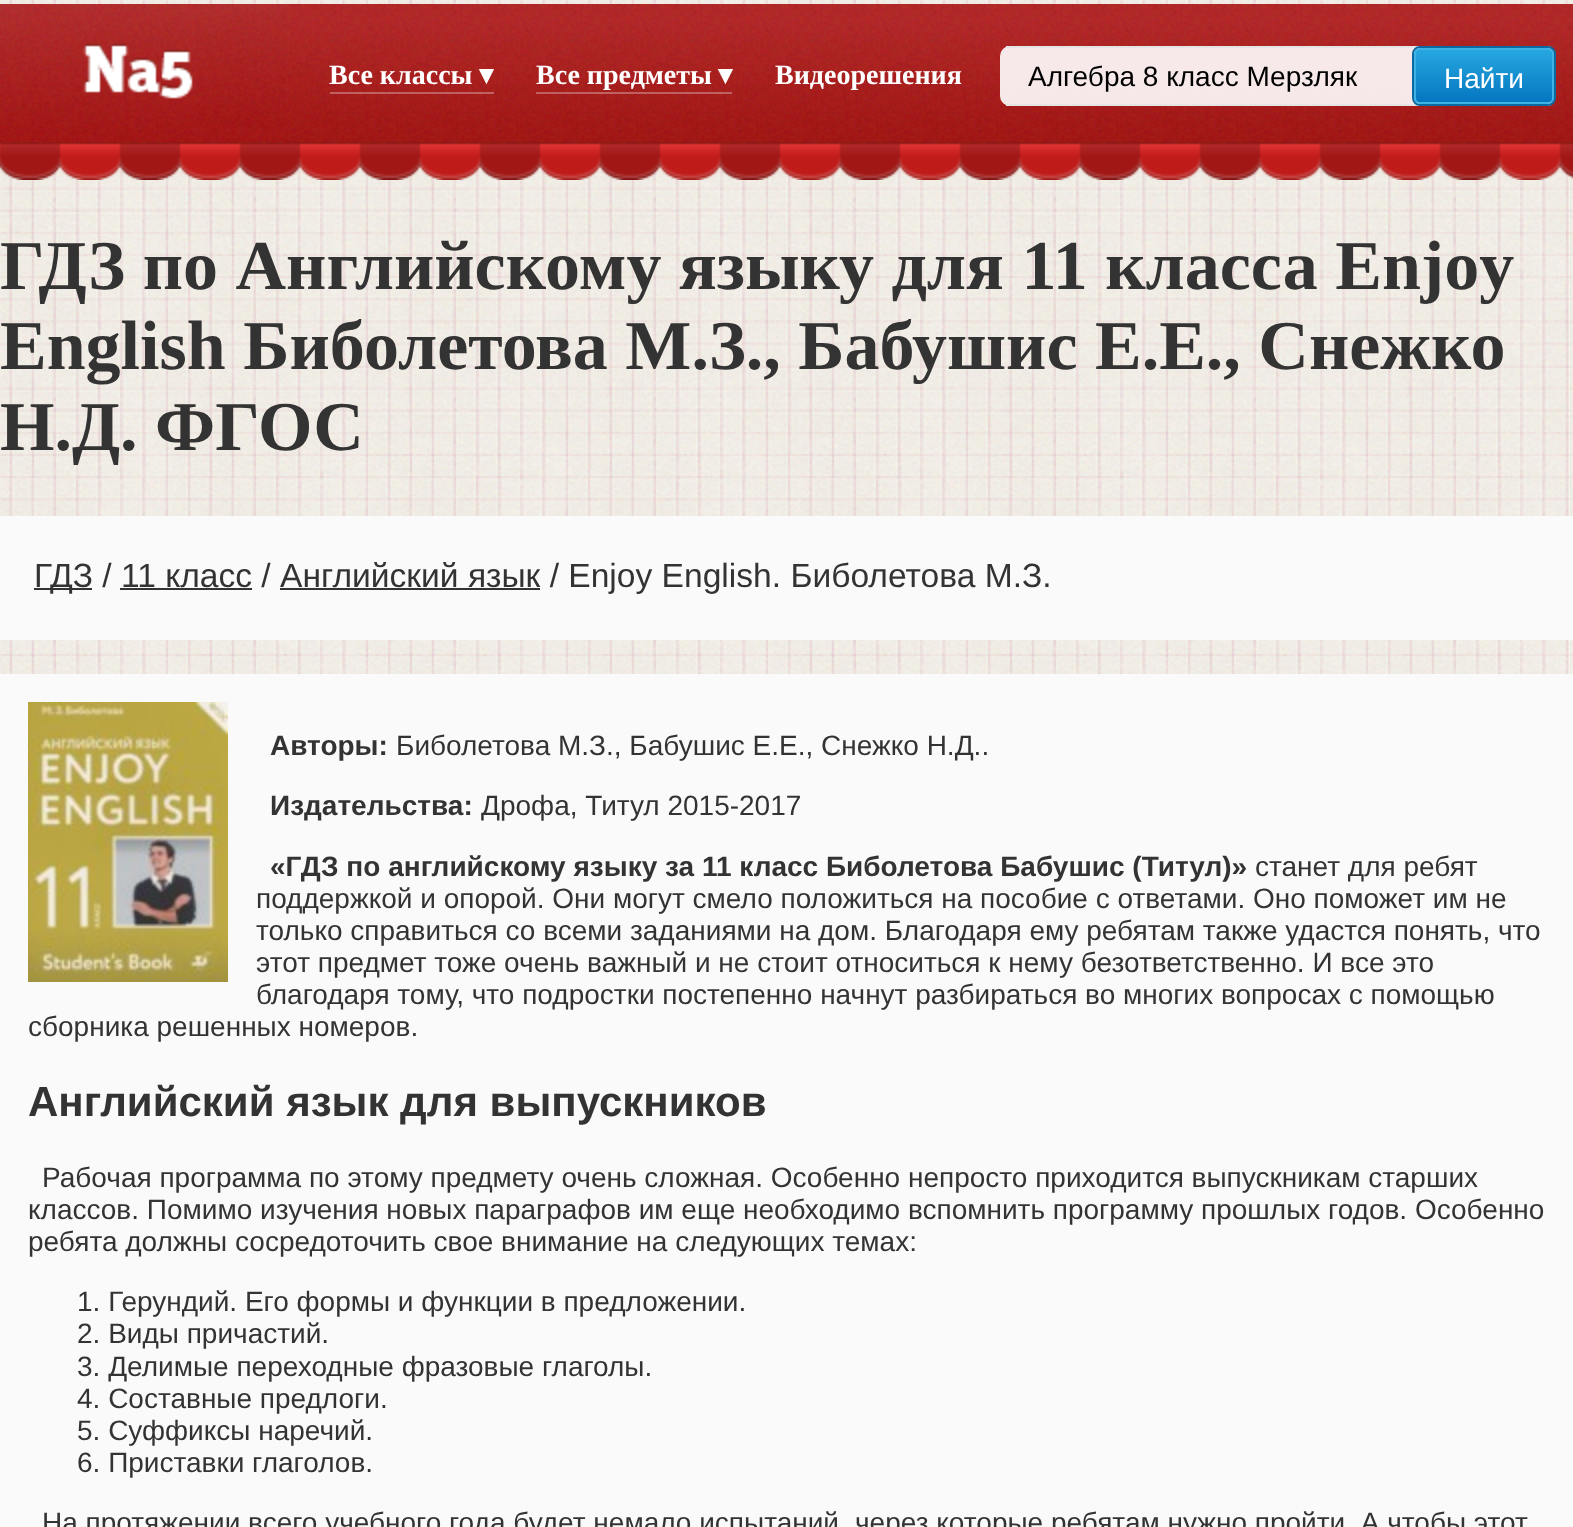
<svg xmlns="http://www.w3.org/2000/svg" width="1573" height="1527" viewBox="0 0 1573 1527">
  <defs>
    <clipPath id="clip1"><rect x="1414" y="48" width="140" height="56" rx="6"/></clipPath>
    <linearGradient id="g1" gradientUnits="userSpaceOnUse" x1="1484" y1="50" x2="1484" y2="102"><stop offset="0" stop-color="#26a7e0"/><stop offset="1" stop-color="#0476c0"/></linearGradient>
  </defs>
  <rect width="100%" height="100%" fill="#ffffff"/>
  <image x="0" y="0" width="1573" height="674" href="img1.png"/>
  <image x="0" y="4" width="1573" height="176" href="img2.png"/>
  <image x="0" y="4" width="290" height="138" href="img3.png"/>
  <rect x="330" y="92" width="164" height="2" fill="#ffffff" fill-opacity="0.3"/>
  <text x="329" y="84" font-family="Liberation Serif" font-size="28" font-weight="bold" fill="#ffffff">Все классы</text>
  <text x="479" y="84" font-family="DejaVu Sans" font-size="28" font-weight="bold" fill="#ffffff">▾</text>
  <rect x="536" y="92" width="196" height="2" fill="#ffffff" fill-opacity="0.3"/>
  <text x="536" y="84" font-family="Liberation Serif" font-size="28" font-weight="bold" fill="#ffffff">Все предметы</text>
  <text x="718" y="84" font-family="DejaVu Sans" font-size="28" font-weight="bold" fill="#ffffff">▾</text>
  <text x="775" y="84" font-family="Liberation Serif" font-size="28" font-weight="bold" fill="#ffffff">Видеорешения</text>
  <rect x="1000" y="46" width="554" height="60" rx="10" fill="#ffffff" fill-opacity="0.9"/>
  <rect x="1006" y="46" width="544" height="2" fill="#e5e5e5"/>
  <rect x="1006" y="104" width="544" height="2" fill="#e5e5e5"/>
  <text x="1028" y="86" font-family="Liberation Sans" font-size="28" fill="#000000">Алгебра 8 класс Мерзляк</text>
  <rect x="1413" y="47" width="142" height="58" rx="7" fill="none" stroke="#0b6aa1" stroke-width="2"/>
  <g clip-path="url(#clip1)">
    <rect x="1414" y="50" width="140" height="52" fill="url(#g1)"/>
  </g>
  <rect x="1415" y="49" width="138" height="54" rx="5" fill="none" stroke="#3eb2e4" stroke-width="2"/>
  <text x="1444" y="88" font-family="Liberation Sans" font-size="28" fill="#ffffff">Найти</text>
  <text x="0" y="289" font-family="Liberation Serif" font-size="70" font-weight="bold" fill="#333333">ГДЗ по Английскому языку для 11 класса Enjoy</text>
  <text x="0" y="369" font-family="Liberation Serif" font-size="70" font-weight="bold" fill="#333333">English Биболетова М.З., Бабушис Е.Е., Снежко</text>
  <text x="0" y="450" font-family="Liberation Serif" font-size="70" font-weight="bold" fill="#333333">Н.Д. ФГОС</text>
  <rect x="0" y="516" width="1573" height="124" fill="#fafafa"/>
  <rect x="34" y="588" width="58" height="2" fill="#333333"/>
  <text x="34" y="587" font-family="Liberation Sans" font-size="33.6" fill="#333333">ГДЗ / 11 класс / Английский язык / Enjoy English. Биболетова М.З.</text>
  <rect x="120" y="588" width="132" height="2" fill="#333333"/>
  <rect x="280" y="588" width="260" height="2" fill="#333333"/>
  <rect x="0" y="674" width="1573" height="853" fill="#fafafa"/>
  <image x="28" y="702" width="200" height="280" href="img4.png"/>
  <text x="270" y="755" font-family="Liberation Sans" font-size="28" font-weight="bold" fill="#333333">Авторы:</text>
  <text x="396" y="755" font-family="Liberation Sans" font-size="28" fill="#333333">Биболетова М.З., Бабушис Е.Е., Снежко Н.Д..</text>
  <text x="270" y="815" font-family="Liberation Sans" font-size="28" font-weight="bold" fill="#333333">Издательства:</text>
  <text x="481" y="815" font-family="Liberation Sans" font-size="28" fill="#333333">Дрофа, Титул 2015-2017</text>
  <text x="270" y="876" font-family="Liberation Sans" font-size="28" font-weight="bold" fill="#333333">«ГДЗ по английскому языку за 11 класс Биболетова Бабушис (Титул)»</text>
  <text x="1255" y="876" font-family="Liberation Sans" font-size="28" fill="#333333">станет для ребят</text>
  <text x="256" y="908" font-family="Liberation Sans" font-size="28" fill="#333333">поддержкой и опорой. Они могут смело положиться на пособие с ответами. Оно поможет им не</text>
  <text x="256" y="940" font-family="Liberation Sans" font-size="28" fill="#333333">только справиться со всеми заданиями на дом. Благодаря ему ребятам также удастся понять, что</text>
  <text x="256" y="972" font-family="Liberation Sans" font-size="28" fill="#333333">этот предмет тоже очень важный и не стоит относиться к нему безответственно. И все это</text>
  <text x="256" y="1004" font-family="Liberation Sans" font-size="28" fill="#333333">благодаря тому, что подростки постепенно начнут разбираться во многих вопросах с помощью</text>
  <text x="28" y="1036" font-family="Liberation Sans" font-size="28" fill="#333333">сборника решенных номеров.</text>
  <text x="28" y="1116" font-family="Liberation Sans" font-size="42" font-weight="bold" fill="#333333">Английский язык для выпускников</text>
  <text x="42" y="1187" font-family="Liberation Sans" font-size="28" fill="#333333">Рабочая программа по этому предмету очень сложная. Особенно непросто приходится выпускникам старших</text>
  <text x="28" y="1219" font-family="Liberation Sans" font-size="28" fill="#333333">классов. Помимо изучения новых параграфов им еще необходимо вспомнить программу прошлых годов. Особенно</text>
  <text x="28" y="1251" font-family="Liberation Sans" font-size="28" fill="#333333">ребята должны сосредоточить свое внимание на следующих темах:</text>
  <text x="77" y="1311" font-family="Liberation Sans" font-size="28" fill="#333333">1. Герундий. Его формы и функции в предложении.</text>
  <text x="77" y="1343" font-family="Liberation Sans" font-size="28" fill="#333333">2. Виды причастий.</text>
  <text x="77" y="1376" font-family="Liberation Sans" font-size="28" fill="#333333">3. Делимые переходные фразовые глаголы.</text>
  <text x="77" y="1408" font-family="Liberation Sans" font-size="28" fill="#333333">4. Составные предлоги.</text>
  <text x="77" y="1440" font-family="Liberation Sans" font-size="28" fill="#333333">5. Суффиксы наречий.</text>
  <text x="77" y="1472" font-family="Liberation Sans" font-size="28" fill="#333333">6. Приставки глаголов.</text>
  <text x="42" y="1532" font-family="Liberation Sans" font-size="28" fill="#333333">На протяжении всего учебного года будет немало испытаний</text>
  <text x="855" y="1532" font-family="Liberation Sans" font-size="28" fill="#333333">через которые ребятам нужно пройти. А чтобы этот</text>
</svg>
